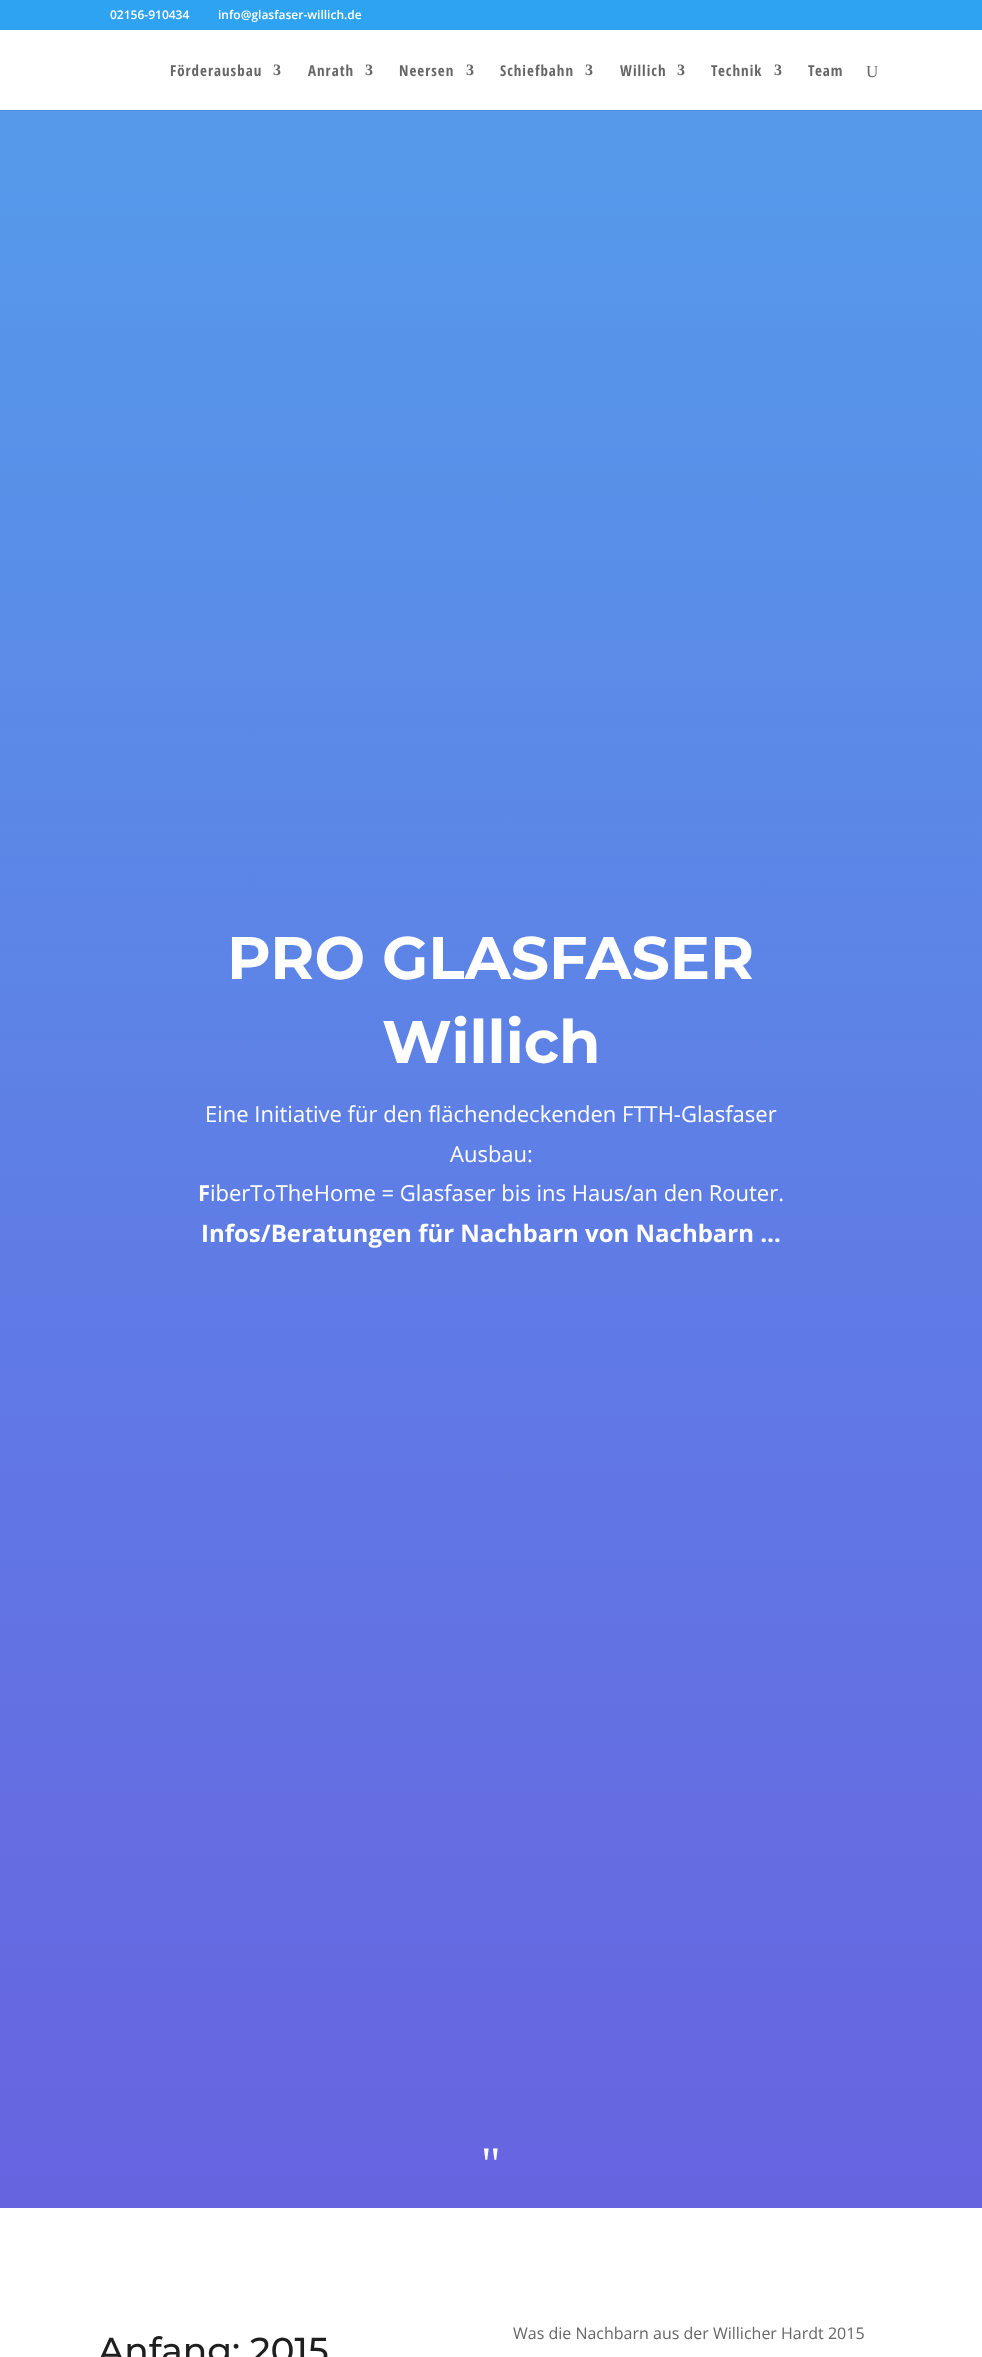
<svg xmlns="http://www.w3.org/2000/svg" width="982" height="2357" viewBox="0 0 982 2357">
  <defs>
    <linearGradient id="g1" gradientUnits="userSpaceOnUse" x1="491" y1="-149" x2="491" y2="2208"><stop offset="0" stop-color="#53a1ec"/><stop offset="0.99" stop-color="#6764e0"/></linearGradient>
  </defs>
  <rect width="100%" height="100%" fill="#ffffff"/>
  <rect x="0" y="0" width="982" height="30" fill="#2ea3f2"/>
  <text x="110" y="19" font-family="Open Sans" font-size="12" font-weight="600" fill="#ffffff">02156-910434</text>
  <text x="218" y="19" font-family="Open Sans" font-size="12" font-weight="600" fill="#ffffff">info@glasfaser-willich.de</text>
  <rect x="0" y="110" width="982" height="1" fill="#4d8bd4"/>
  <text x="170" y="76" font-family="Open Sans Condensed" font-size="15" font-weight="bold" letter-spacing="1" fill="#666666">Förderausbau</text>
  <text x="273" y="75" font-family="Liberation Serif" font-size="16" font-weight="bold" letter-spacing="1" fill="#666666">3</text>
  <text x="308" y="76" font-family="Open Sans Condensed" font-size="15" font-weight="bold" letter-spacing="1" fill="#666666">Anrath</text>
  <text x="365" y="75" font-family="Liberation Serif" font-size="16" font-weight="bold" letter-spacing="1" fill="#666666">3</text>
  <text x="399" y="76" font-family="Open Sans Condensed" font-size="15" font-weight="bold" letter-spacing="1" fill="#666666">Neersen</text>
  <text x="466" y="75" font-family="Liberation Serif" font-size="16" font-weight="bold" letter-spacing="1" fill="#666666">3</text>
  <text x="500" y="76" font-family="Open Sans Condensed" font-size="15" font-weight="bold" letter-spacing="1" fill="#666666">Schiefbahn</text>
  <text x="585" y="75" font-family="Liberation Serif" font-size="16" font-weight="bold" letter-spacing="1" fill="#666666">3</text>
  <text x="620" y="76" font-family="Open Sans Condensed" font-size="15" font-weight="bold" letter-spacing="1" fill="#666666">Willich</text>
  <text x="677" y="75" font-family="Liberation Serif" font-size="16" font-weight="bold" letter-spacing="1" fill="#666666">3</text>
  <text x="711" y="76" font-family="Open Sans Condensed" font-size="15" font-weight="bold" letter-spacing="1" fill="#666666">Technik</text>
  <text x="774" y="75" font-family="Liberation Serif" font-size="16" font-weight="bold" letter-spacing="1" fill="#666666">3</text>
  <text x="808" y="76" font-family="Open Sans Condensed" font-size="15" font-weight="bold" letter-spacing="1" fill="#666666">Team</text>
  <text x="866" y="77" font-family="Liberation Serif" font-size="17" fill="#666666">U</text>
  <rect x="0" y="111" width="982" height="2097" fill="url(#g1)"/>
  <text x="227" y="979" font-family="Montserrat" font-size="60" font-weight="bold" fill="#ffffff">PRO GLASFASER</text>
  <text x="382" y="1063" font-family="Montserrat" font-size="60" font-weight="bold" fill="#ffffff">Willich</text>
  <text x="205" y="1122" font-family="Open Sans" font-size="22" fill="#ffffff">Eine Initiative für den flächendeckenden FTTH-Glasfaser</text>
  <text x="450" y="1162" font-family="Open Sans" font-size="22" fill="#ffffff">Ausbau:</text>
  <text x="198" y="1201" font-family="Open Sans" font-size="22" font-weight="bold" fill="#ffffff">F</text>
  <text x="210" y="1201" font-family="Open Sans" font-size="22" fill="#ffffff">iberToTheHome = Glasfaser bis ins Haus/an den Router.</text>
  <text x="201" y="1242" font-family="Open Sans" font-size="24" font-weight="bold" fill="#ffffff">Infos/Beratungen für Nachbarn von Nachbarn …</text>
  <text x="481" y="2180" font-family="Liberation Serif" font-size="48" fill="#ffffff">"</text>
  <text x="513" y="2339" font-family="Open Sans" font-size="16" fill="#666666">Was die Nachbarn aus der Willicher Hardt 2015</text>
  <text x="98" y="2363" font-family="Montserrat" font-size="36" font-weight="500" fill="#1f1f1f">Anfang: 2015</text>
</svg>
